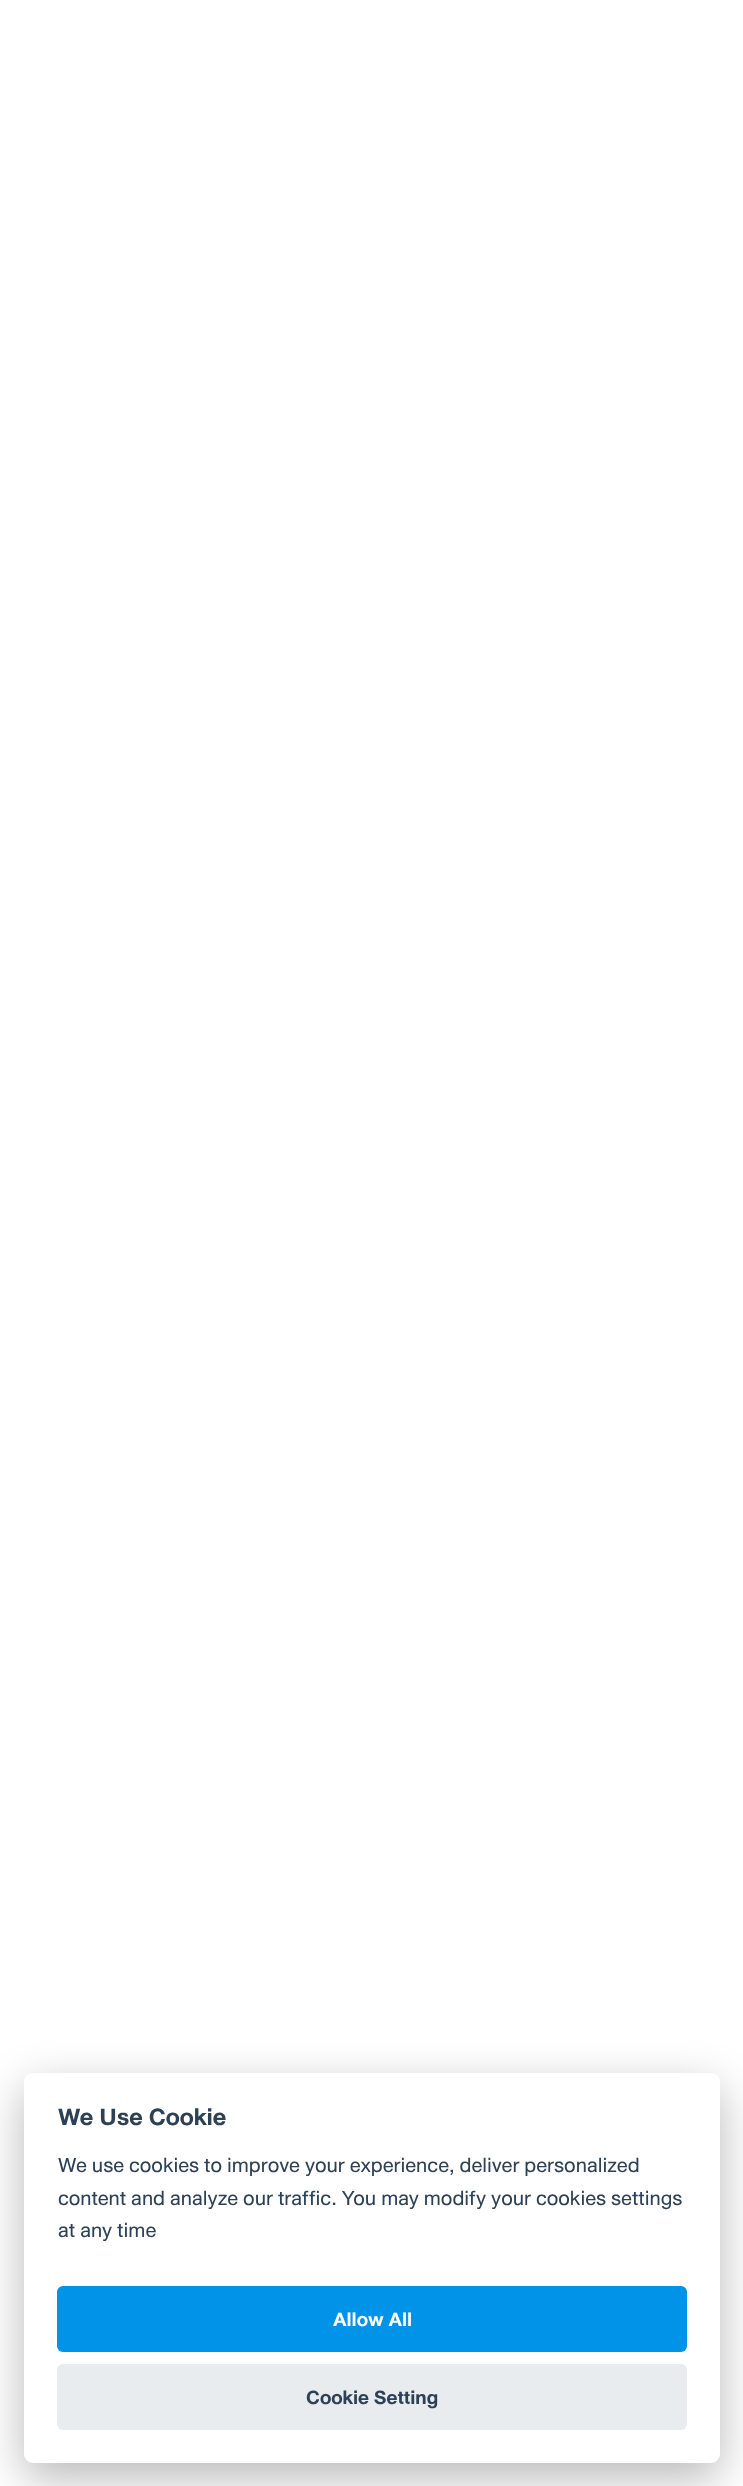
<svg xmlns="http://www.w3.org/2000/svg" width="743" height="2486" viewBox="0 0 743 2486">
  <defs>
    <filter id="blur1" x="-50%" y="-200%" width="200%" height="500%"><feGaussianBlur stdDeviation="22.5"/></filter>
  </defs>
  <rect width="100%" height="100%" fill="#ffffff"/>
  <rect x="24" y="2088" width="696" height="390" rx="9" fill="#020203" fill-opacity="0.28" filter="url(#blur1)"/>
  <rect x="24" y="2073" width="696" height="390" rx="9" fill="#ffffff"/>
  <text x="58" y="2125" font-family="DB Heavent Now" font-size="25.25" font-weight="bold" fill="#2d4156">We Use Cookie</text>
  <text x="58" y="2172" font-family="DB Heavent Now" font-size="21.6" fill="#2d4156">We use cookies to improve your experience, deliver personalized</text>
  <text x="58" y="2205" font-family="DB Heavent Now" font-size="21.6" fill="#2d4156">content and analyze our traffic. You may modify your cookies settings</text>
  <text x="58" y="2237" font-family="DB Heavent Now" font-size="21.6" fill="#2d4156">at any time</text>
  <rect x="57" y="2286" width="630" height="66" rx="6" fill="#0093e8"/>
  <text x="333" y="2326" font-family="DB Heavent Now" font-size="20.5" font-weight="bold" fill="#ffffff">Allow All</text>
  <rect x="57" y="2364" width="630" height="66" rx="6" fill="#e9ecee"/>
  <text x="306" y="2404" font-family="DB Heavent Now" font-size="20.5" font-weight="bold" fill="#2d4156">Cookie Setting</text>
</svg>
